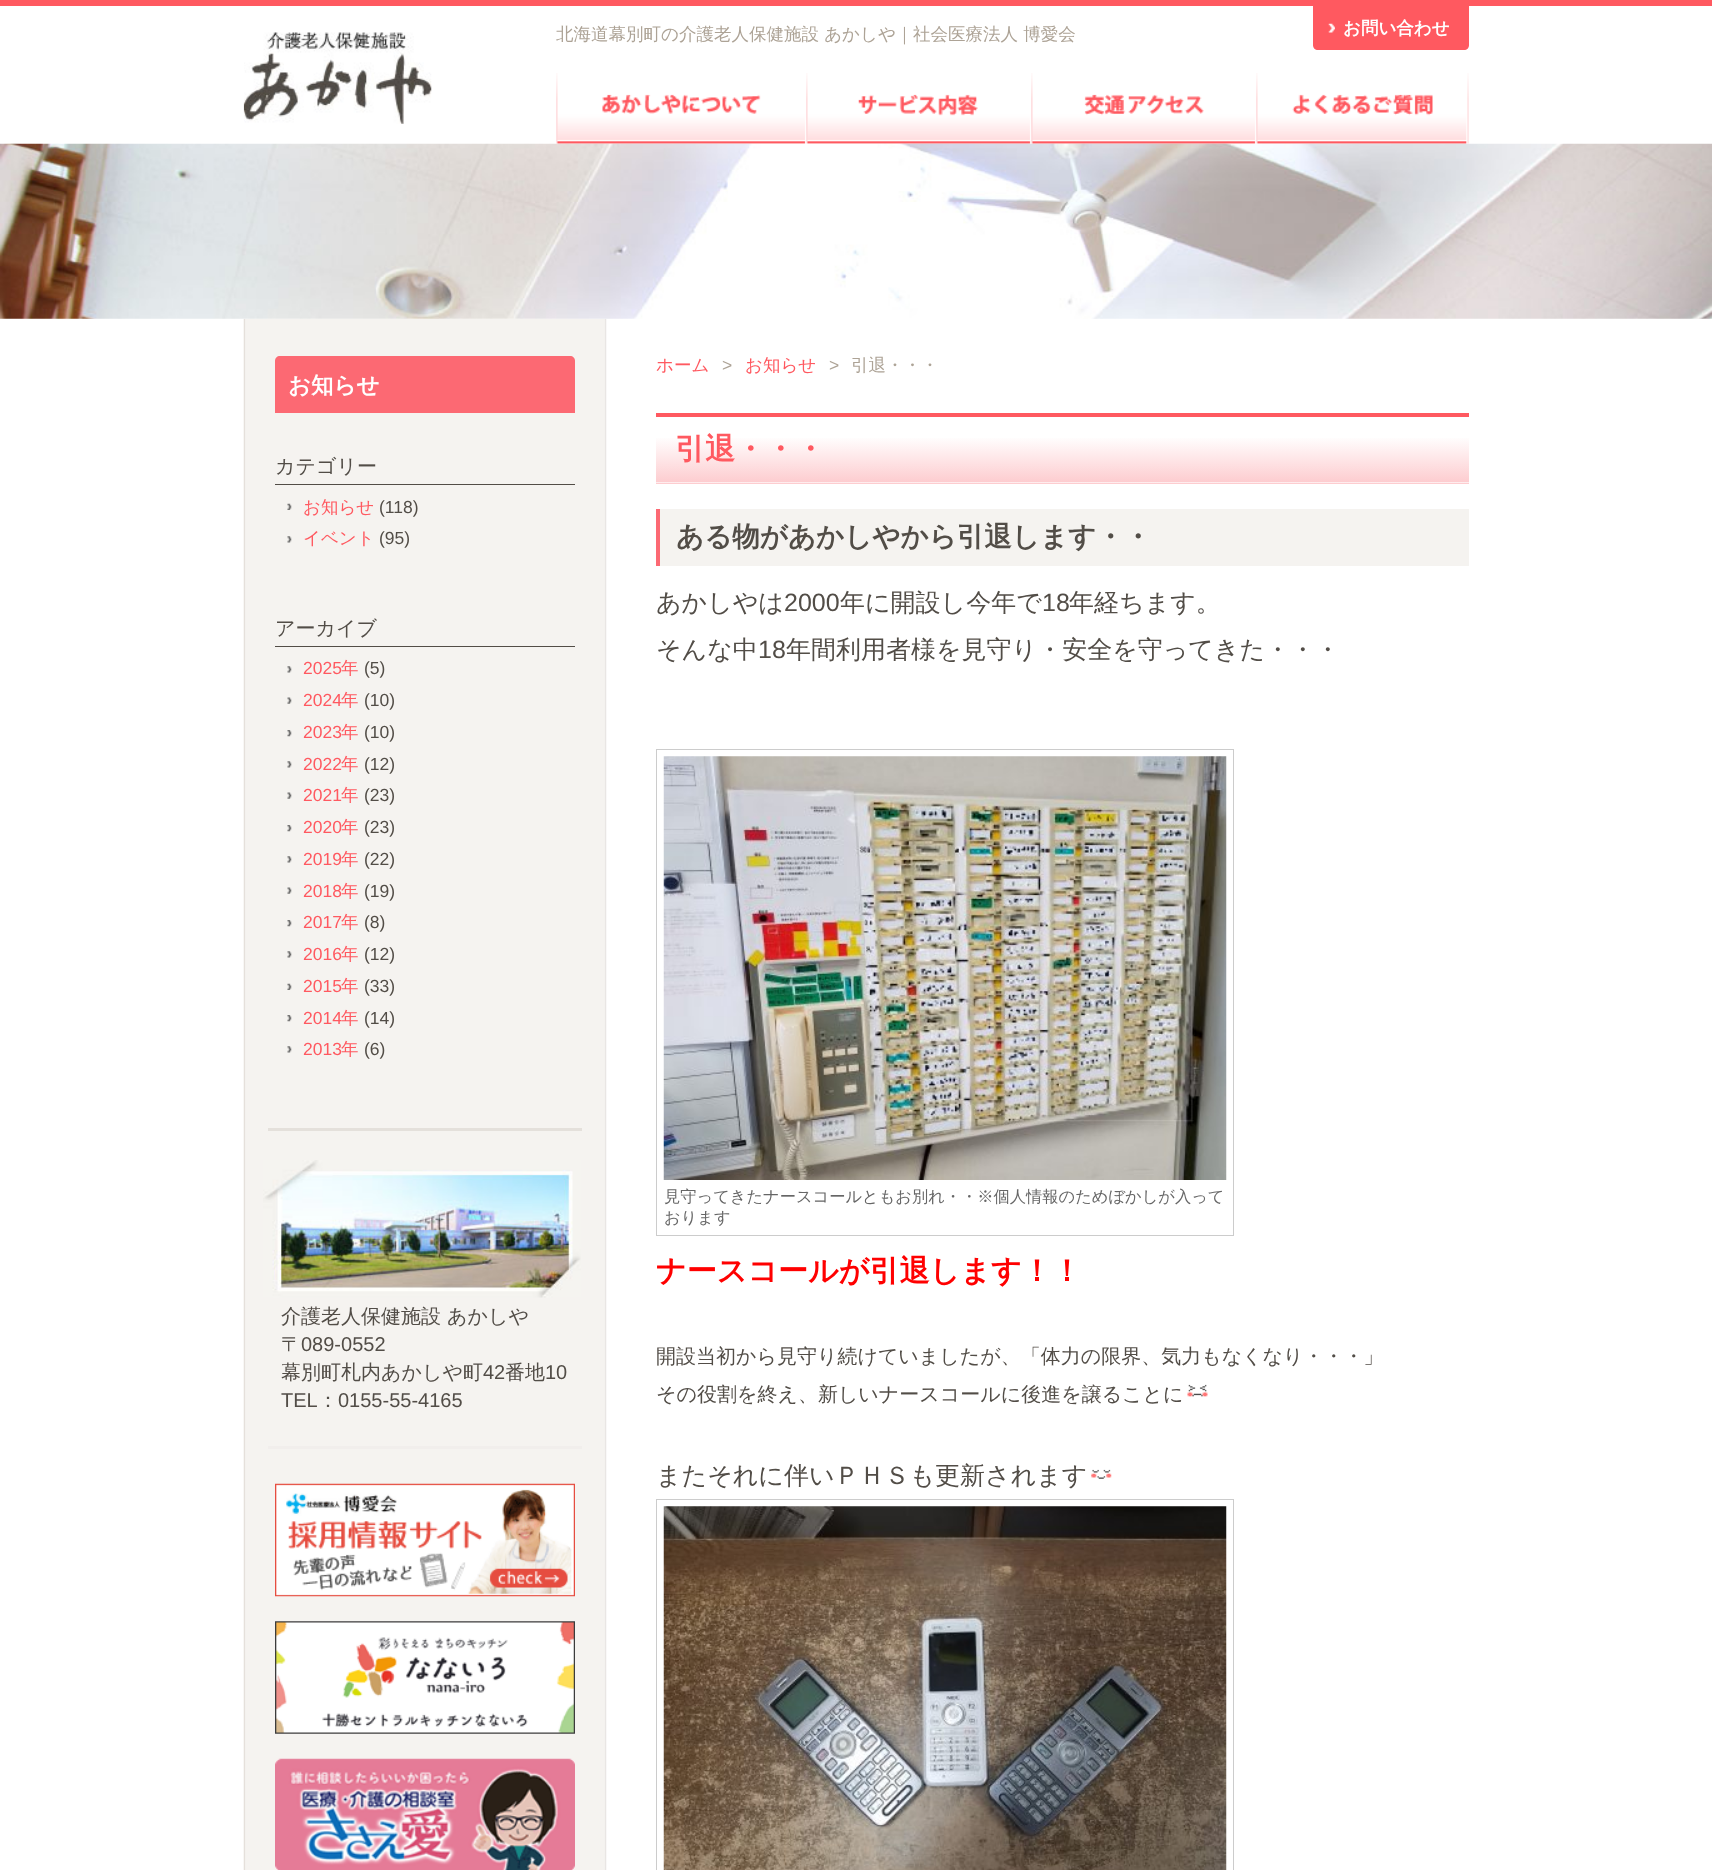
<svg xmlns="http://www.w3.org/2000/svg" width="1712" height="1870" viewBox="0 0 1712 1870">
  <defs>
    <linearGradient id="g1" gradientUnits="userSpaceOnUse" x1="1063" y1="416" x2="1063" y2="483"><stop offset="0" stop-color="#ffffff"/><stop offset="0.3" stop-color="#ffffff"/><stop offset="0.98" stop-color="#fdcdd0"/><stop offset="1" stop-color="#ffffff"/></linearGradient>
  </defs>
  <rect width="100%" height="100%" fill="#ffffff"/>
  <rect x="0" y="0" width="1712" height="6" fill="#ff5960"/>
  <image x="243" y="32" width="189" height="92" href="img1.png"/>
  <text x="556" y="40" font-family="WenQuanYi Zen Hei" font-size="17.5" font-weight="500" fill="#ada396">北海道幕別町の介護老人保健施設 あかしや｜社会医療法人 博愛会</text>
  <path d="M1313 6H1469V45C1469 48 1467 50 1464 50H1318C1315 50 1313 48 1313 45Z" fill="#ff5960"/>
  <image x="1328" y="23" width="7" height="10" href="img2.png"/>
  <text x="1343" y="34" font-family="WenQuanYi Zen Hei" font-size="17.5" font-weight="bold" fill="#ffffff">お問い合わせ</text>
  <image x="556" y="73" width="250" height="71" href="img3.png"/>
  <image x="806" y="73" width="225" height="71" href="img4.png"/>
  <image x="1031" y="73" width="225" height="71" href="img5.png"/>
  <image x="1256" y="73" width="213" height="71" href="img6.png"/>
  <image x="243" y="318" width="364" height="1552" href="img8.png"/>
  <image x="0" y="143" width="1712" height="176" href="img7.png"/>
  <path d="M280 356H570C573 356 575 358 575 361V413H275V361C275 358 277 356 280 356Z" fill="#fc6973"/>
  <text x="288" y="393" font-family="WenQuanYi Zen Hei" font-size="22.5" font-weight="bold" fill="#ffffff">お知らせ</text>
  <rect x="275" y="484" width="300" height="1" fill="#524d47"/>
  <text x="275" y="473" font-family="WenQuanYi Zen Hei" font-size="20" font-weight="500" fill="#524d47">カテゴリー</text>
  <image x="287" y="503" width="5" height="7" href="img9.png"/>
  <text x="303" y="513" font-family="WenQuanYi Zen Hei" font-size="17.5" font-weight="500" fill="#ff5960">お知らせ</text>
  <text x="379" y="513" font-family="Liberation Sans" font-size="17.5" fill="#524d47">(118)</text>
  <image x="287" y="536" width="5" height="7" href="img10.png"/>
  <text x="303" y="544" font-family="WenQuanYi Zen Hei" font-size="17.5" font-weight="500" fill="#ff5960">イベント</text>
  <text x="379" y="544" font-family="Liberation Sans" font-size="17.5" fill="#524d47">(95)</text>
  <rect x="275" y="646" width="300" height="1" fill="#524d47"/>
  <text x="275" y="635" font-family="WenQuanYi Zen Hei" font-size="20" font-weight="500" fill="#524d47">アーカイブ</text>
  <image x="287" y="666" width="5" height="7" href="img10.png"/>
  <text x="303" y="674" font-family="Liberation Sans" font-size="17.5" fill="#ff5960">2025</text>
  <text x="341" y="674" font-family="WenQuanYi Zen Hei" font-size="17.5" font-weight="500" fill="#ff5960">年</text>
  <text x="364" y="674" font-family="Liberation Sans" font-size="17.5" fill="#524d47">(5)</text>
  <image x="287" y="697" width="5" height="7" href="img11.png"/>
  <text x="303" y="706" font-family="Liberation Sans" font-size="17.5" fill="#ff5960">2024</text>
  <text x="341" y="706" font-family="WenQuanYi Zen Hei" font-size="17.5" font-weight="500" fill="#ff5960">年</text>
  <text x="364" y="706" font-family="Liberation Sans" font-size="17.5" fill="#524d47">(10)</text>
  <image x="287" y="730" width="5" height="7" href="img12.png"/>
  <text x="303" y="738" font-family="Liberation Sans" font-size="17.5" fill="#ff5960">2023</text>
  <text x="341" y="738" font-family="WenQuanYi Zen Hei" font-size="17.5" font-weight="500" fill="#ff5960">年</text>
  <text x="364" y="738" font-family="Liberation Sans" font-size="17.5" fill="#524d47">(10)</text>
  <image x="287" y="761" width="5" height="7" href="img10.png"/>
  <text x="303" y="770" font-family="Liberation Sans" font-size="17.5" fill="#ff5960">2022</text>
  <text x="341" y="770" font-family="WenQuanYi Zen Hei" font-size="17.5" font-weight="500" fill="#ff5960">年</text>
  <text x="364" y="770" font-family="Liberation Sans" font-size="17.5" fill="#524d47">(12)</text>
  <image x="287" y="792" width="5" height="7" href="img11.png"/>
  <text x="303" y="801" font-family="Liberation Sans" font-size="17.5" fill="#ff5960">2021</text>
  <text x="341" y="801" font-family="WenQuanYi Zen Hei" font-size="17.5" font-weight="500" fill="#ff5960">年</text>
  <text x="364" y="801" font-family="Liberation Sans" font-size="17.5" fill="#524d47">(23)</text>
  <image x="287" y="825" width="5" height="7" href="img12.png"/>
  <text x="303" y="833" font-family="Liberation Sans" font-size="17.5" fill="#ff5960">2020</text>
  <text x="341" y="833" font-family="WenQuanYi Zen Hei" font-size="17.5" font-weight="500" fill="#ff5960">年</text>
  <text x="364" y="833" font-family="Liberation Sans" font-size="17.5" fill="#524d47">(23)</text>
  <image x="287" y="856" width="5" height="7" href="img10.png"/>
  <text x="303" y="865" font-family="Liberation Sans" font-size="17.5" fill="#ff5960">2019</text>
  <text x="341" y="865" font-family="WenQuanYi Zen Hei" font-size="17.5" font-weight="500" fill="#ff5960">年</text>
  <text x="364" y="865" font-family="Liberation Sans" font-size="17.5" fill="#524d47">(22)</text>
  <image x="287" y="887" width="5" height="7" href="img11.png"/>
  <text x="303" y="897" font-family="Liberation Sans" font-size="17.5" fill="#ff5960">2018</text>
  <text x="341" y="897" font-family="WenQuanYi Zen Hei" font-size="17.5" font-weight="500" fill="#ff5960">年</text>
  <text x="364" y="897" font-family="Liberation Sans" font-size="17.5" fill="#524d47">(19)</text>
  <image x="287" y="920" width="5" height="7" href="img12.png"/>
  <text x="303" y="928" font-family="Liberation Sans" font-size="17.5" fill="#ff5960">2017</text>
  <text x="341" y="928" font-family="WenQuanYi Zen Hei" font-size="17.5" font-weight="500" fill="#ff5960">年</text>
  <text x="364" y="928" font-family="Liberation Sans" font-size="17.5" fill="#524d47">(8)</text>
  <image x="287" y="951" width="5" height="7" href="img10.png"/>
  <text x="303" y="960" font-family="Liberation Sans" font-size="17.5" fill="#ff5960">2016</text>
  <text x="341" y="960" font-family="WenQuanYi Zen Hei" font-size="17.5" font-weight="500" fill="#ff5960">年</text>
  <text x="364" y="960" font-family="Liberation Sans" font-size="17.5" fill="#524d47">(12)</text>
  <image x="287" y="983" width="5" height="7" href="img9.png"/>
  <text x="303" y="992" font-family="Liberation Sans" font-size="17.5" fill="#ff5960">2015</text>
  <text x="341" y="992" font-family="WenQuanYi Zen Hei" font-size="17.5" font-weight="500" fill="#ff5960">年</text>
  <text x="364" y="992" font-family="Liberation Sans" font-size="17.5" fill="#524d47">(33)</text>
  <image x="287" y="1015" width="5" height="7" href="img12.png"/>
  <text x="303" y="1024" font-family="Liberation Sans" font-size="17.5" fill="#ff5960">2014</text>
  <text x="341" y="1024" font-family="WenQuanYi Zen Hei" font-size="17.5" font-weight="500" fill="#ff5960">年</text>
  <text x="364" y="1024" font-family="Liberation Sans" font-size="17.5" fill="#524d47">(14)</text>
  <image x="287" y="1046" width="5" height="7" href="img10.png"/>
  <text x="303" y="1055" font-family="Liberation Sans" font-size="17.5" fill="#ff5960">2013</text>
  <text x="341" y="1055" font-family="WenQuanYi Zen Hei" font-size="17.5" font-weight="500" fill="#ff5960">年</text>
  <text x="364" y="1055" font-family="Liberation Sans" font-size="17.5" fill="#524d47">(6)</text>
  <rect x="268" y="1128" width="314" height="3" fill="#e4e0db"/>
  <image x="263" y="1160" width="318" height="138" href="img13.png"/>
  <text x="281" y="1323" font-family="WenQuanYi Zen Hei" font-size="20" font-weight="500" fill="#524d47">介護老人保健施設 あかしや</text>
  <text x="281" y="1351" font-family="WenQuanYi Zen Hei" font-size="20" font-weight="500" fill="#524d47">〒</text>
  <text x="301" y="1351" font-family="Liberation Sans" font-size="20" fill="#524d47">089-0552</text>
  <text x="281" y="1379" font-family="WenQuanYi Zen Hei" font-size="20" font-weight="500" fill="#524d47">幕別町札内あかしや町</text>
  <text x="483" y="1379" font-family="Liberation Sans" font-size="20" fill="#524d47">42</text>
  <text x="505" y="1379" font-family="WenQuanYi Zen Hei" font-size="20" font-weight="500" fill="#524d47">番地</text>
  <text x="545" y="1379" font-family="Liberation Sans" font-size="20" fill="#524d47">10</text>
  <text x="281" y="1407" font-family="Liberation Sans" font-size="20" fill="#524d47">TEL</text>
  <text x="318" y="1407" font-family="WenQuanYi Zen Hei" font-size="20" font-weight="500" fill="#524d47">：</text>
  <text x="338" y="1407" font-family="Liberation Sans" font-size="20" fill="#524d47">0155-55-4165</text>
  <rect x="268" y="1446" width="314" height="3" fill="#f1eeec"/>
  <image x="275" y="1483" width="300" height="114" href="img14.png"/>
  <image x="275" y="1621" width="300" height="113" href="img15.png"/>
  <image x="275" y="1758" width="300" height="112" href="img16.png"/>
  <text x="656" y="371" font-family="WenQuanYi Zen Hei" font-size="17.5" font-weight="500" fill="#ff5960">ホーム</text>
  <text x="722" y="371" font-family="Liberation Sans" font-size="17.5" fill="#ada396">&gt;</text>
  <text x="745" y="371" font-family="WenQuanYi Zen Hei" font-size="17.5" font-weight="500" fill="#ff5960">お知らせ</text>
  <text x="829" y="371" font-family="Liberation Sans" font-size="17.5" fill="#ada396">&gt;</text>
  <text x="851" y="371" font-family="WenQuanYi Zen Hei" font-size="17.5" font-weight="500" fill="#ada396">引退・・・</text>
  <rect x="656" y="438" width="813" height="45" fill="url(#g1)"/>
  <rect x="656" y="413" width="813" height="4" fill="#ff5960"/>
  <rect x="656" y="483" width="813" height="1" fill="#fdcdd0"/>
  <text x="675" y="459" font-family="WenQuanYi Zen Hei" font-size="30" font-weight="bold" fill="#ff5960">引退・・・</text>
  <rect x="660" y="509" width="809" height="57" fill="#f5f3f0"/>
  <rect x="656" y="509" width="4" height="57" fill="#fc6973"/>
  <text x="676" y="546" font-family="WenQuanYi Zen Hei" font-size="27.5" font-weight="bold" fill="#524d47">ある物があかしやから引退します・・</text>
  <text x="656" y="611" font-family="WenQuanYi Zen Hei" font-size="25" font-weight="500" fill="#524d47">あかしやは</text>
  <text x="784" y="611" font-family="Liberation Sans" font-size="25" fill="#524d47">2000</text>
  <text x="840" y="611" font-family="WenQuanYi Zen Hei" font-size="25" font-weight="500" fill="#524d47">年に開設し今年で</text>
  <text x="1042" y="611" font-family="Liberation Sans" font-size="25" fill="#524d47">18</text>
  <text x="1069" y="611" font-family="WenQuanYi Zen Hei" font-size="25" font-weight="500" fill="#524d47">年経ちます。</text>
  <text x="656" y="658" font-family="WenQuanYi Zen Hei" font-size="25" font-weight="500" fill="#524d47">そんな中</text>
  <text x="758" y="658" font-family="Liberation Sans" font-size="25" fill="#524d47">18</text>
  <text x="786" y="658" font-family="WenQuanYi Zen Hei" font-size="25" font-weight="500" fill="#524d47">年間利用者様を見守り・安全を守ってきた・・・</text>
  <rect x="656.5" y="749.5" width="577" height="486" fill="none" stroke="#cccccc"/>
  <image x="663" y="756" width="564" height="424" href="img17.png"/>
  <text x="664" y="1202" font-family="WenQuanYi Zen Hei" font-size="16.25" font-weight="500" fill="#666666">見守ってきたナースコールともお別れ・・※個人情報のためぼかしが入って</text>
  <text x="664" y="1223" font-family="WenQuanYi Zen Hei" font-size="16.25" font-weight="500" fill="#666666">おります</text>
  <text x="656" y="1281" font-family="WenQuanYi Zen Hei" font-size="30" font-weight="bold" fill="#ff0000">ナースコールが引退します！！</text>
  <text x="656" y="1363" font-family="WenQuanYi Zen Hei" font-size="20" font-weight="500" fill="#524d47">開設当初から見守り続けていましたが、「体力の限界、気力もなくなり・・・」</text>
  <text x="656" y="1401" font-family="WenQuanYi Zen Hei" font-size="20" font-weight="500" fill="#524d47">その役割を終え、新しいナースコールに後進を譲ることに</text>
  <image x="1187" y="1384" width="21" height="13" href="img18.png"/>
  <text x="656" y="1484" font-family="WenQuanYi Zen Hei" font-size="25" font-weight="500" fill="#524d47">またそれに伴いＰＨＳも更新されます</text>
  <image x="1091" y="1469" width="21" height="10" href="img19.png"/>
  <rect x="656.5" y="1499.5" width="577" height="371" fill="none" stroke="#cccccc"/>
  <image x="663" y="1506" width="564" height="364" href="img20.png"/>
</svg>
